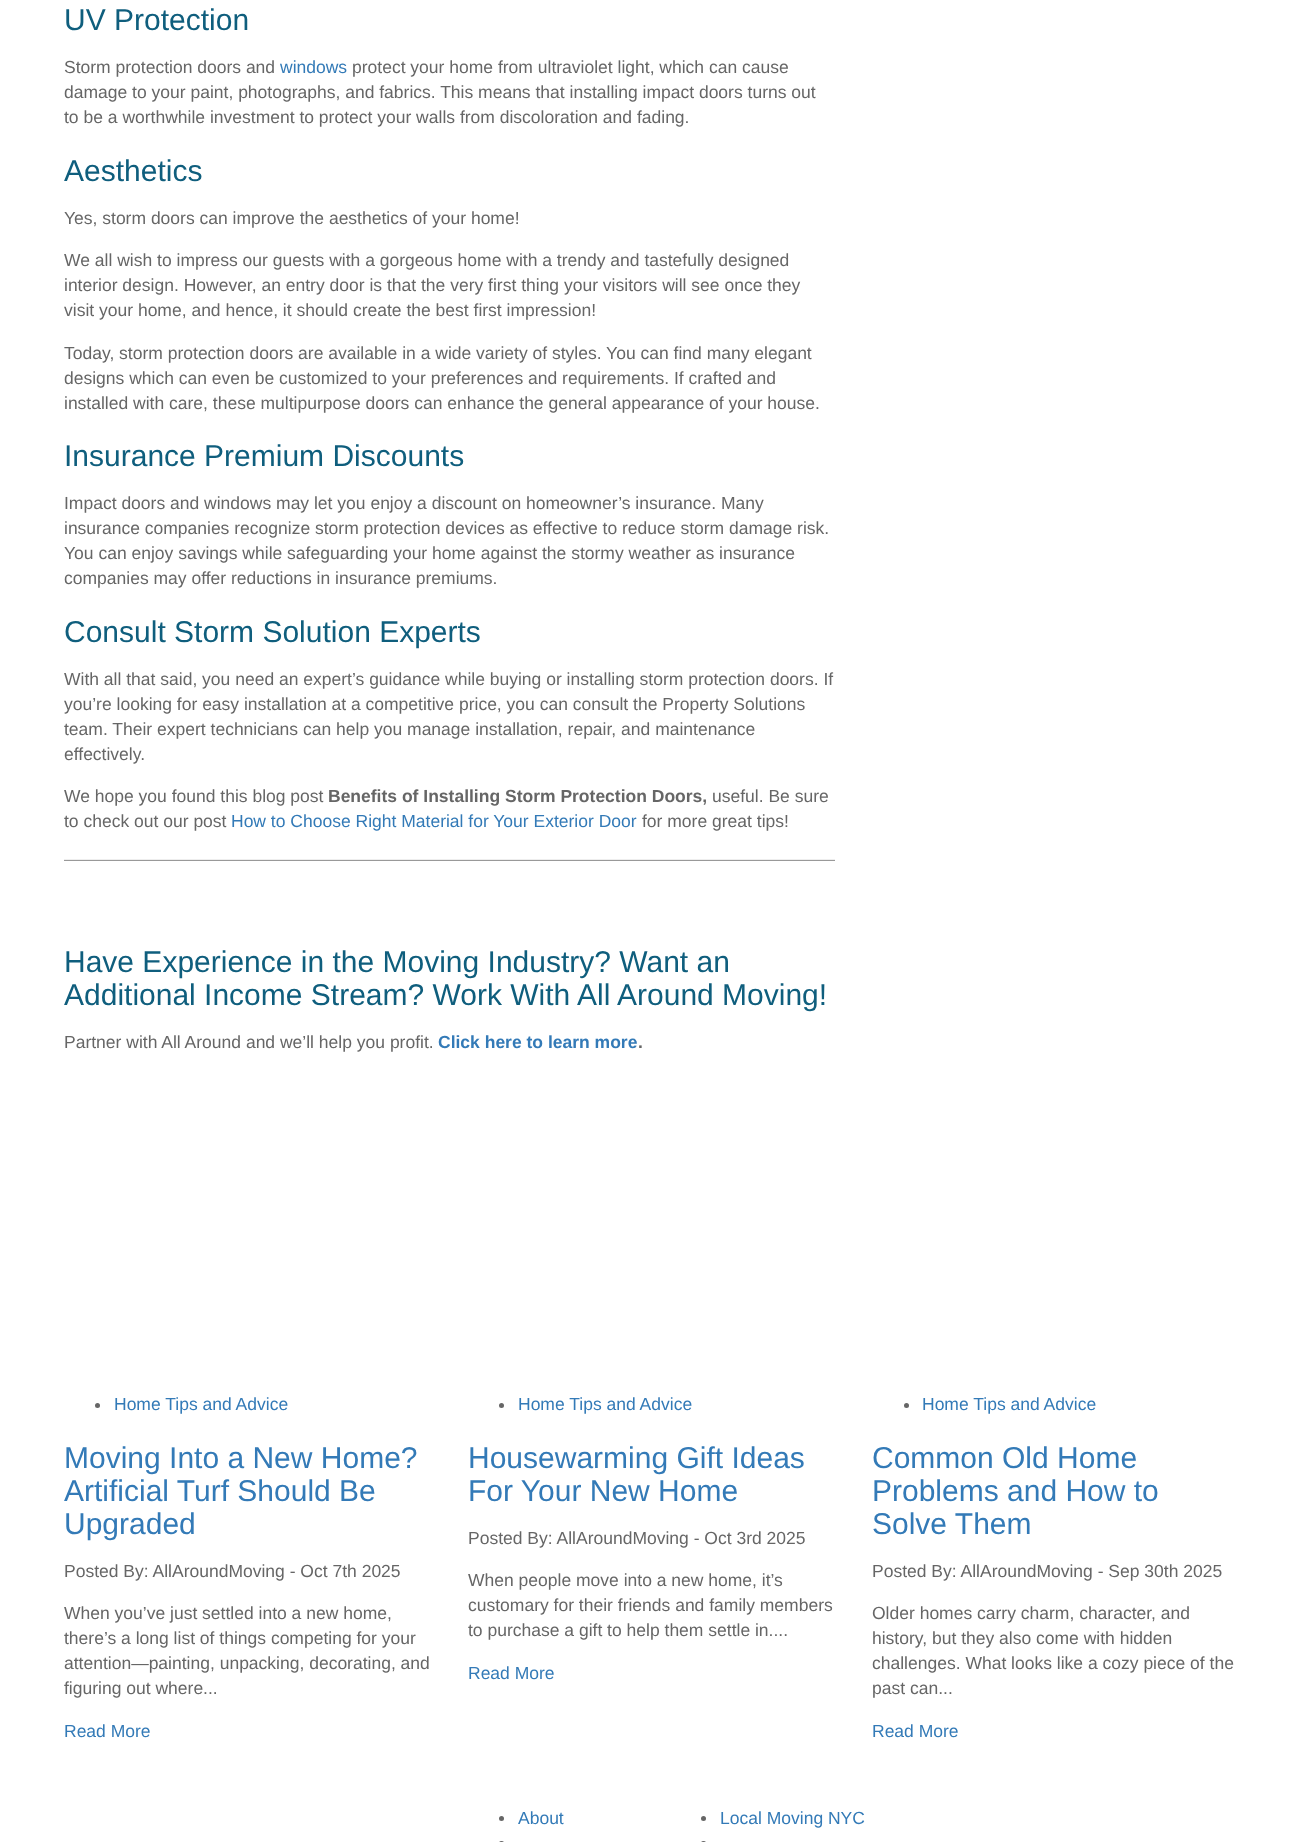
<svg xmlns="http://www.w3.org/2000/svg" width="1302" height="1842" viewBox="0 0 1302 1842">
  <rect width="100%" height="100%" fill="#ffffff"/>
  <text x="64" y="30" font-family="Liberation Sans" font-size="30" fill="#0f5e7d">UV Protection</text>
  <text x="64" y="73" font-family="Liberation Sans" font-size="17.5" fill="#666666">Storm protection doors and</text>
  <text x="280" y="73" font-family="Liberation Sans" font-size="17.5" fill="#337ab7">windows</text>
  <text x="352" y="73" font-family="Liberation Sans" font-size="17.5" fill="#666666">protect your home from ultraviolet light, which can cause</text>
  <text x="64" y="98" font-family="Liberation Sans" font-size="17.5" fill="#666666">damage to your paint, photographs, and fabrics. This means that installing impact doors turns out</text>
  <text x="64" y="123" font-family="Liberation Sans" font-size="17.5" fill="#666666">to be a worthwhile investment to protect your walls from discoloration and fading.</text>
  <text x="64" y="181" font-family="Liberation Sans" font-size="30" fill="#0f5e7d">Aesthetics</text>
  <text x="64" y="224" font-family="Liberation Sans" font-size="17.5" fill="#666666">Yes, storm doors can improve the aesthetics of your home!</text>
  <text x="64" y="266" font-family="Liberation Sans" font-size="17.5" fill="#666666">We all wish to impress our guests with a gorgeous home with a trendy and tastefully designed</text>
  <text x="64" y="291" font-family="Liberation Sans" font-size="17.5" fill="#666666">interior design. However, an entry door is that the very first thing your visitors will see once they</text>
  <text x="64" y="316" font-family="Liberation Sans" font-size="17.5" fill="#666666">visit your home, and hence, it should create the best first impression!</text>
  <text x="64" y="359" font-family="Liberation Sans" font-size="17.5" fill="#666666">Today, storm protection doors are available in a wide variety of styles. You can find many elegant</text>
  <text x="64" y="384" font-family="Liberation Sans" font-size="17.5" fill="#666666">designs which can even be customized to your preferences and requirements. If crafted and</text>
  <text x="64" y="409" font-family="Liberation Sans" font-size="17.5" fill="#666666">installed with care, these multipurpose doors can enhance the general appearance of your house.</text>
  <text x="64" y="466" font-family="Liberation Sans" font-size="30" fill="#0f5e7d">Insurance Premium Discounts</text>
  <text x="64" y="509" font-family="Liberation Sans" font-size="17.5" fill="#666666">Impact doors and windows may let you enjoy a discount on homeowner’s insurance. Many</text>
  <text x="64" y="534" font-family="Liberation Sans" font-size="17.5" fill="#666666">insurance companies recognize storm protection devices as effective to reduce storm damage risk.</text>
  <text x="64" y="559" font-family="Liberation Sans" font-size="17.5" fill="#666666">You can enjoy savings while safeguarding your home against the stormy weather as insurance</text>
  <text x="64" y="584" font-family="Liberation Sans" font-size="17.5" fill="#666666">companies may offer reductions in insurance premiums.</text>
  <text x="64" y="642" font-family="Liberation Sans" font-size="30" fill="#0f5e7d">Consult Storm Solution Experts</text>
  <text x="64" y="685" font-family="Liberation Sans" font-size="17.5" fill="#666666">With all that said, you need an expert’s guidance while buying or installing storm protection doors. If</text>
  <text x="64" y="710" font-family="Liberation Sans" font-size="17.5" fill="#666666">you’re looking for easy installation at a competitive price, you can consult the Property Solutions</text>
  <text x="64" y="735" font-family="Liberation Sans" font-size="17.5" fill="#666666">team. Their expert technicians can help you manage installation, repair, and maintenance</text>
  <text x="64" y="760" font-family="Liberation Sans" font-size="17.5" fill="#666666">effectively.</text>
  <text x="64" y="802" font-family="Liberation Sans" font-size="17.5" fill="#666666">We hope you found this blog post</text>
  <text x="328" y="802" font-family="Liberation Sans" font-size="17.5" font-weight="bold" fill="#666666">Benefits of Installing Storm Protection Doors,</text>
  <text x="712" y="802" font-family="Liberation Sans" font-size="17.5" fill="#666666">useful. Be sure</text>
  <text x="64" y="827" font-family="Liberation Sans" font-size="17.5" fill="#666666">to check out our post</text>
  <text x="231" y="827" font-family="Liberation Sans" font-size="17.5" fill="#337ab7">How to Choose Right Material for Your Exterior Door</text>
  <text x="642" y="827" font-family="Liberation Sans" font-size="17.5" fill="#666666">for more great tips!</text>
  <rect x="64" y="859" width="771" height="1" fill="#eeeeee"/>
  <rect x="64" y="860" width="771" height="1" fill="#999999"/>
  <text x="64" y="972" font-family="Liberation Sans" font-size="30" fill="#0f5e7d">Have Experience in the Moving Industry? Want an</text>
  <text x="64" y="1005" font-family="Liberation Sans" font-size="30" fill="#0f5e7d">Additional Income Stream? Work With All Around Moving!</text>
  <text x="64" y="1048" font-family="Liberation Sans" font-size="17.5" fill="#666666">Partner with All Around and we’ll help you profit.</text>
  <text x="438" y="1048" font-family="Liberation Sans" font-size="17.5" font-weight="bold" fill="#337ab7">Click here to learn more</text>
  <text x="638" y="1048" font-family="Liberation Sans" font-size="17.5" font-weight="bold" fill="#666666">.</text>
  <circle cx="97.5" cy="1405.5" r="2.5" fill="#666666"/>
  <text x="114" y="1410" font-family="Liberation Sans" font-size="17.5" fill="#337ab7">Home Tips and Advice</text>
  <text x="64" y="1468" font-family="Liberation Sans" font-size="30" fill="#337ab7">Moving Into a New Home?</text>
  <text x="64" y="1501" font-family="Liberation Sans" font-size="30" fill="#337ab7">Artificial Turf Should Be</text>
  <text x="64" y="1534" font-family="Liberation Sans" font-size="30" fill="#337ab7">Upgraded</text>
  <text x="64" y="1577" font-family="Liberation Sans" font-size="17.5" fill="#666666">Posted By: AllAroundMoving - Oct 7th 2025</text>
  <text x="64" y="1619" font-family="Liberation Sans" font-size="17.5" fill="#666666">When you’ve just settled into a new home,</text>
  <text x="64" y="1644" font-family="Liberation Sans" font-size="17.5" fill="#666666">there’s a long list of things competing for your</text>
  <text x="64" y="1669" font-family="Liberation Sans" font-size="17.5" fill="#666666">attention—painting, unpacking, decorating, and</text>
  <text x="64" y="1694" font-family="Liberation Sans" font-size="17.5" fill="#666666">figuring out where...</text>
  <text x="64" y="1737" font-family="Liberation Sans" font-size="17.5" fill="#337ab7">Read More</text>
  <circle cx="501.5" cy="1405.5" r="2.5" fill="#666666"/>
  <text x="518" y="1410" font-family="Liberation Sans" font-size="17.5" fill="#337ab7">Home Tips and Advice</text>
  <text x="468" y="1468" font-family="Liberation Sans" font-size="30" fill="#337ab7">Housewarming Gift Ideas</text>
  <text x="468" y="1501" font-family="Liberation Sans" font-size="30" fill="#337ab7">For Your New Home</text>
  <text x="468" y="1544" font-family="Liberation Sans" font-size="17.5" fill="#666666">Posted By: AllAroundMoving - Oct 3rd 2025</text>
  <text x="468" y="1586" font-family="Liberation Sans" font-size="17.5" fill="#666666">When people move into a new home, it’s</text>
  <text x="468" y="1611" font-family="Liberation Sans" font-size="17.5" fill="#666666">customary for their friends and family members</text>
  <text x="468" y="1636" font-family="Liberation Sans" font-size="17.5" fill="#666666">to purchase a gift to help them settle in....</text>
  <text x="468" y="1679" font-family="Liberation Sans" font-size="17.5" fill="#337ab7">Read More</text>
  <circle cx="906.5" cy="1405.5" r="2.5" fill="#666666"/>
  <text x="922" y="1410" font-family="Liberation Sans" font-size="17.5" fill="#337ab7">Home Tips and Advice</text>
  <text x="872" y="1468" font-family="Liberation Sans" font-size="30" fill="#337ab7">Common Old Home</text>
  <text x="872" y="1501" font-family="Liberation Sans" font-size="30" fill="#337ab7">Problems and How to</text>
  <text x="872" y="1534" font-family="Liberation Sans" font-size="30" fill="#337ab7">Solve Them</text>
  <text x="872" y="1577" font-family="Liberation Sans" font-size="17.5" fill="#666666">Posted By: AllAroundMoving - Sep 30th 2025</text>
  <text x="872" y="1619" font-family="Liberation Sans" font-size="17.5" fill="#666666">Older homes carry charm, character, and</text>
  <text x="872" y="1644" font-family="Liberation Sans" font-size="17.5" fill="#666666">history, but they also come with hidden</text>
  <text x="872" y="1669" font-family="Liberation Sans" font-size="17.5" fill="#666666">challenges. What looks like a cozy piece of the</text>
  <text x="872" y="1694" font-family="Liberation Sans" font-size="17.5" fill="#666666">past can...</text>
  <text x="872" y="1737" font-family="Liberation Sans" font-size="17.5" fill="#337ab7">Read More</text>
  <circle cx="501.5" cy="1818.5" r="2.5" fill="#666666"/>
  <text x="518" y="1824" font-family="Liberation Sans" font-size="17.5" fill="#337ab7">About</text>
  <rect x="499" y="1841" width="5" height="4" rx="2.5" fill="#666666"/>
  <circle cx="703.5" cy="1818.5" r="2.5" fill="#666666"/>
  <text x="720" y="1824" font-family="Liberation Sans" font-size="17.5" fill="#337ab7">Local Moving NYC</text>
  <rect x="701" y="1841" width="5" height="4" rx="2.5" fill="#666666"/>
</svg>
